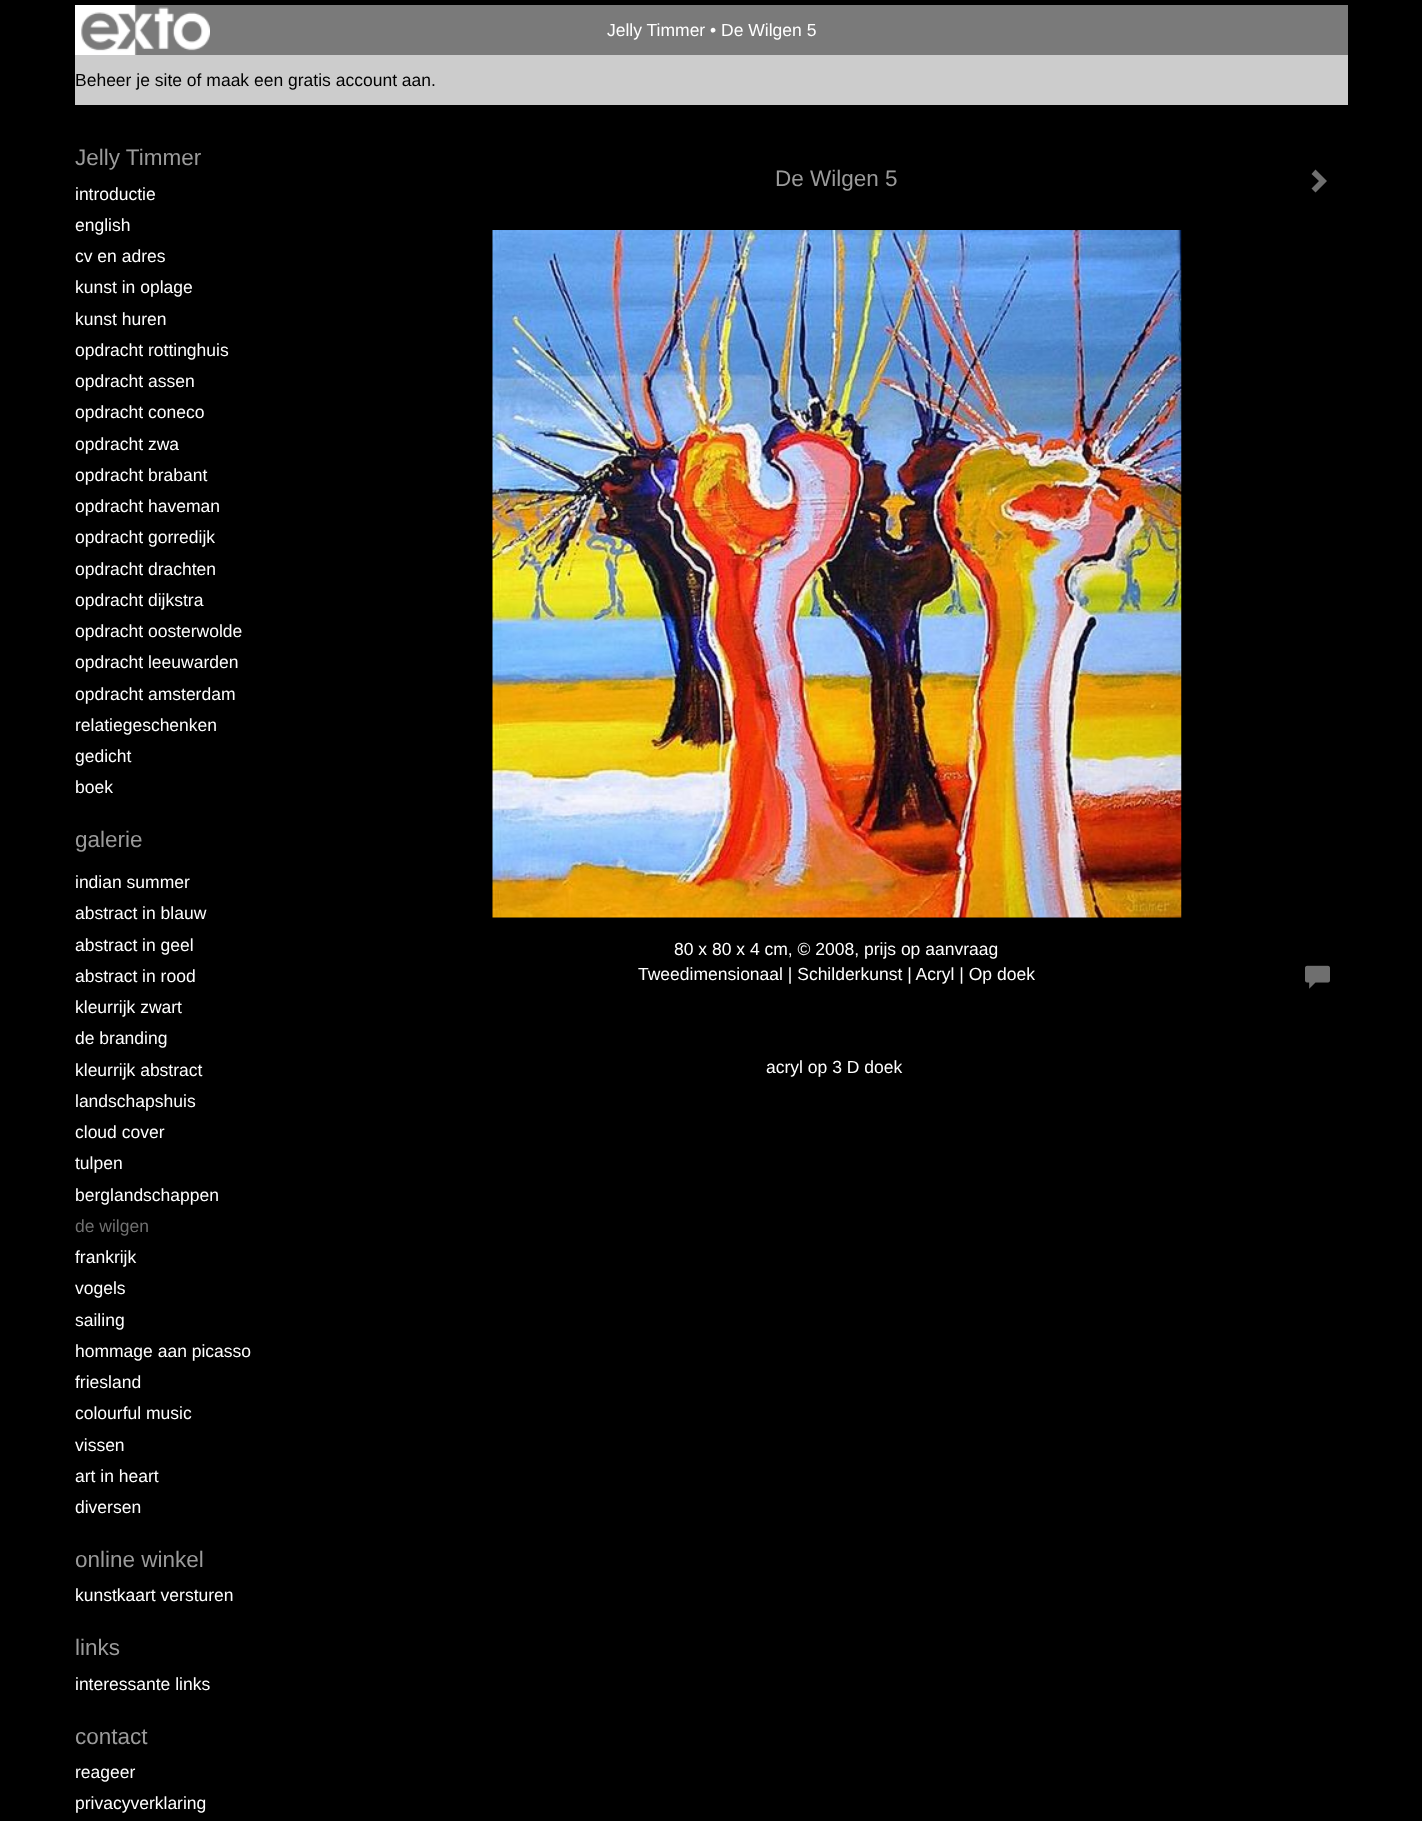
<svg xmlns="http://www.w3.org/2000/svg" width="1422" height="1821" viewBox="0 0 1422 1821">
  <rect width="100%" height="100%" fill="#000000"/>
  <rect x="81" y="5" width="1267" height="50" fill="#7a7a7a"/>
  <image x="75" y="5" width="135" height="50" href="img1.png"/>
  <text x="607" y="36" font-family="Liberation Sans" font-size="17.5" fill="#ffffff">Jelly Timmer • De Wilgen 5</text>
  <rect x="75" y="55" width="1273" height="50" fill="#cccccc"/>
  <text x="75" y="86" font-family="Liberation Sans" font-size="17.5" fill="#000000">Beheer je site of maak een gratis account aan.</text>
  <text x="75" y="165" font-family="Liberation Sans" font-size="22.5" fill="#9a9a9a">Jelly Timmer</text>
  <text x="75" y="200" font-family="Liberation Sans" font-size="17.5" fill="#ffffff">introductie</text>
  <text x="75" y="231" font-family="Liberation Sans" font-size="17.5" fill="#ffffff">english</text>
  <text x="75" y="262" font-family="Liberation Sans" font-size="17.5" fill="#ffffff">cv en adres</text>
  <text x="75" y="293" font-family="Liberation Sans" font-size="17.5" fill="#ffffff">kunst in oplage</text>
  <text x="75" y="325" font-family="Liberation Sans" font-size="17.5" fill="#ffffff">kunst huren</text>
  <text x="75" y="356" font-family="Liberation Sans" font-size="17.5" fill="#ffffff">opdracht rottinghuis</text>
  <text x="75" y="387" font-family="Liberation Sans" font-size="17.5" fill="#ffffff">opdracht assen</text>
  <text x="75" y="418" font-family="Liberation Sans" font-size="17.5" fill="#ffffff">opdracht coneco</text>
  <text x="75" y="450" font-family="Liberation Sans" font-size="17.5" fill="#ffffff">opdracht zwa</text>
  <text x="75" y="481" font-family="Liberation Sans" font-size="17.5" fill="#ffffff">opdracht brabant</text>
  <text x="75" y="512" font-family="Liberation Sans" font-size="17.5" fill="#ffffff">opdracht haveman</text>
  <text x="75" y="543" font-family="Liberation Sans" font-size="17.5" fill="#ffffff">opdracht gorredijk</text>
  <text x="75" y="575" font-family="Liberation Sans" font-size="17.5" fill="#ffffff">opdracht drachten</text>
  <text x="75" y="606" font-family="Liberation Sans" font-size="17.5" fill="#ffffff">opdracht dijkstra</text>
  <text x="75" y="637" font-family="Liberation Sans" font-size="17.5" fill="#ffffff">opdracht oosterwolde</text>
  <text x="75" y="668" font-family="Liberation Sans" font-size="17.5" fill="#ffffff">opdracht leeuwarden</text>
  <text x="75" y="700" font-family="Liberation Sans" font-size="17.5" fill="#ffffff">opdracht amsterdam</text>
  <text x="75" y="731" font-family="Liberation Sans" font-size="17.5" fill="#ffffff">relatiegeschenken</text>
  <text x="75" y="762" font-family="Liberation Sans" font-size="17.5" fill="#ffffff">gedicht</text>
  <text x="75" y="793" font-family="Liberation Sans" font-size="17.5" fill="#ffffff">boek</text>
  <text x="75" y="847" font-family="Liberation Sans" font-size="22.5" fill="#9a9a9a">galerie</text>
  <text x="75" y="888" font-family="Liberation Sans" font-size="17.5" fill="#ffffff">indian summer</text>
  <text x="75" y="919" font-family="Liberation Sans" font-size="17.5" fill="#ffffff">abstract in blauw</text>
  <text x="75" y="951" font-family="Liberation Sans" font-size="17.5" fill="#ffffff">abstract in geel</text>
  <text x="75" y="982" font-family="Liberation Sans" font-size="17.5" fill="#ffffff">abstract in rood</text>
  <text x="75" y="1013" font-family="Liberation Sans" font-size="17.5" fill="#ffffff">kleurrijk zwart</text>
  <text x="75" y="1044" font-family="Liberation Sans" font-size="17.5" fill="#ffffff">de branding</text>
  <text x="75" y="1076" font-family="Liberation Sans" font-size="17.5" fill="#ffffff">kleurrijk abstract</text>
  <text x="75" y="1107" font-family="Liberation Sans" font-size="17.5" fill="#ffffff">landschapshuis</text>
  <text x="75" y="1138" font-family="Liberation Sans" font-size="17.5" fill="#ffffff">cloud cover</text>
  <text x="75" y="1169" font-family="Liberation Sans" font-size="17.5" fill="#ffffff">tulpen</text>
  <text x="75" y="1201" font-family="Liberation Sans" font-size="17.5" fill="#ffffff">berglandschappen</text>
  <text x="75" y="1232" font-family="Liberation Sans" font-size="17.5" fill="#6f6f6f">de wilgen</text>
  <text x="75" y="1263" font-family="Liberation Sans" font-size="17.5" fill="#ffffff">frankrijk</text>
  <text x="75" y="1294" font-family="Liberation Sans" font-size="17.5" fill="#ffffff">vogels</text>
  <text x="75" y="1326" font-family="Liberation Sans" font-size="17.5" fill="#ffffff">sailing</text>
  <text x="75" y="1357" font-family="Liberation Sans" font-size="17.5" fill="#ffffff">hommage aan picasso</text>
  <text x="75" y="1388" font-family="Liberation Sans" font-size="17.5" fill="#ffffff">friesland</text>
  <text x="75" y="1419" font-family="Liberation Sans" font-size="17.5" fill="#ffffff">colourful music</text>
  <text x="75" y="1451" font-family="Liberation Sans" font-size="17.5" fill="#ffffff">vissen</text>
  <text x="75" y="1482" font-family="Liberation Sans" font-size="17.5" fill="#ffffff">art in heart</text>
  <text x="75" y="1513" font-family="Liberation Sans" font-size="17.5" fill="#ffffff">diversen</text>
  <text x="75" y="1567" font-family="Liberation Sans" font-size="22.5" fill="#9a9a9a">online winkel</text>
  <text x="75" y="1601" font-family="Liberation Sans" font-size="17.5" fill="#ffffff">kunstkaart versturen</text>
  <text x="75" y="1655" font-family="Liberation Sans" font-size="22.5" fill="#9a9a9a">links</text>
  <text x="75" y="1690" font-family="Liberation Sans" font-size="17.5" fill="#ffffff">interessante links</text>
  <text x="75" y="1744" font-family="Liberation Sans" font-size="22.5" fill="#9a9a9a">contact</text>
  <text x="75" y="1778" font-family="Liberation Sans" font-size="17.5" fill="#ffffff">reageer</text>
  <text x="75" y="1809" font-family="Liberation Sans" font-size="17.5" fill="#ffffff">privacyverklaring</text>
  <text x="775" y="186" font-family="Liberation Sans" font-size="22.5" fill="#9a9a9a">De Wilgen 5</text>
  <path d="M1327 181L1315.5 192.5L1311.5 188.5L1319 181L1311.5 174L1315.5 169.5Z" fill="#6f6f6f"/>
  <image x="492" y="230" width="690" height="688" href="img2.png"/>
  <text x="674" y="955" font-family="Liberation Sans" font-size="17.5" fill="#ffffff">80 x 80 x 4 cm, © 2008, prijs op aanvraag</text>
  <text x="638" y="980" font-family="Liberation Sans" font-size="17.5" fill="#ffffff">Tweedimensionaal | Schilderkunst | Acryl | Op doek</text>
  <image x="1305" y="965" width="25" height="24" href="img3.png"/>
  <text x="766" y="1073" font-family="Liberation Sans" font-size="17.5" fill="#ffffff">acryl op 3 D doek</text>
</svg>
